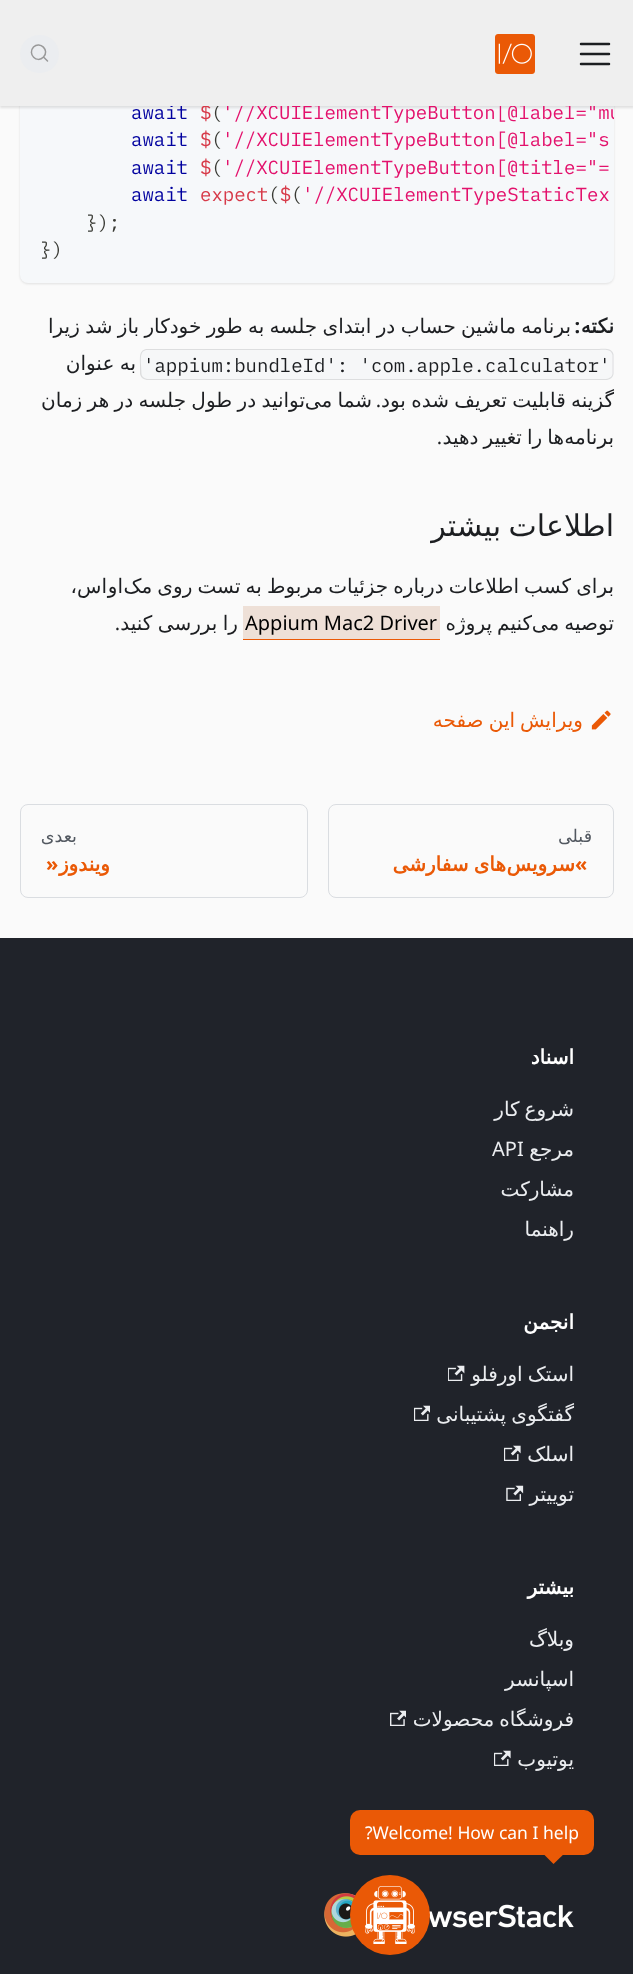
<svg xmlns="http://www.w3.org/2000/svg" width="633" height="1974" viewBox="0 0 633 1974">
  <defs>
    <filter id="blur1" x="-50%" y="-200%" width="200%" height="500%"><feGaussianBlur stdDeviation="1"/></filter>
    <clipPath id="clip1"><rect x="20" y="-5" width="594" height="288" rx="8"/></clipPath>
  </defs>
  <rect width="100%" height="100%" fill="#fafafa"/>
  <rect x="20" y="-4" width="594" height="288" rx="8" fill="#000000" fill-opacity="0.1" filter="url(#blur1)"/>
  <rect x="20" y="-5" width="594" height="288" rx="8" fill="#f6f8fa"/>
  <rect x="0" y="1" width="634" height="107" fill="#000000" fill-opacity="0.1" filter="url(#blur1)"/>
  <g clip-path="url(#clip1)">
    <text x="222" y="119" font-family="IBM Plex Mono" font-size="19" fill="#e3116c">'//XCUIElementTypeButton[@label="mu</text>
  </g>
  <text x="211" y="119" font-family="IBM Plex Mono" font-size="19" fill="#393a34">(</text>
  <text x="200" y="119" font-family="IBM Plex Mono" font-size="19" fill="#d73a49">$</text>
  <text x="131" y="119" font-family="IBM Plex Mono" font-size="19" fill="#00009f">await</text>
  <rect x="0" y="0" width="633" height="106" fill="#efefef"/>
  <path d="M581 44H609M581 54H609M581 64H609" fill="none" stroke="#1c1e21" stroke-width="2.5" stroke-linecap="round"/>
  <image x="495" y="34" width="40" height="40" href="img1.png"/>
  <rect x="20" y="35" width="39" height="38" rx="19" fill="#ebedf0"/>
  <path d="M43.5 57L47.5 61L43.5 57C37 64 27 54 33.5 47C40 40.5 50 50.5 43.5 57Z" fill="none" stroke="#999999" stroke-width="1.5" stroke-linecap="round" stroke-linejoin="round"/>
  <text x="222" y="146" font-family="IBM Plex Mono" font-size="19" fill="#e3116c">'//XCUIElementTypeButton[@label="s</text>
  <text x="211" y="146" font-family="IBM Plex Mono" font-size="19" fill="#393a34">(</text>
  <text x="200" y="146" font-family="IBM Plex Mono" font-size="19" fill="#d73a49">$</text>
  <text x="131" y="146" font-family="IBM Plex Mono" font-size="19" fill="#00009f">await</text>
  <text x="222" y="174" font-family="IBM Plex Mono" font-size="19" fill="#e3116c">'//XCUIElementTypeButton[@title="=</text>
  <text x="211" y="174" font-family="IBM Plex Mono" font-size="19" fill="#393a34">(</text>
  <text x="200" y="174" font-family="IBM Plex Mono" font-size="19" fill="#d73a49">$</text>
  <text x="131" y="174" font-family="IBM Plex Mono" font-size="19" fill="#00009f">await</text>
  <text x="200" y="201" font-family="IBM Plex Mono" font-size="19" fill="#d73a49">expect $</text>
  <text x="131" y="201" font-family="IBM Plex Mono" font-size="19" fill="#00009f">await</text>
  <text x="302" y="201" font-family="IBM Plex Mono" font-size="19" fill="#e3116c">'//XCUIElementTypeStaticTex</text>
  <text x="268" y="201" font-family="IBM Plex Mono" font-size="19" fill="#393a34">( (</text>
  <text x="86" y="229" font-family="IBM Plex Mono" font-size="19" fill="#393a34">});</text>
  <text x="40" y="256" font-family="IBM Plex Mono" font-size="19" fill="#393a34">})</text>
  <text x="614" y="333" font-family="DejaVu Sans" font-size="20" font-weight="bold" direction="rtl" fill="#1c1e21">نکته</text>
  <text x="580" y="333" font-family="Noto Sans" font-size="20" font-weight="bold" direction="rtl" fill="#1c1e21">:</text>
  <text x="571" y="333" word-spacing="-1" font-family="DejaVu Sans" font-size="20" direction="rtl" fill="#1c1e21">برنامه ماشین حساب در ابتدای جلسه به طور خودکار باز شد زیرا</text>
  <path d="M599 349H606.5C610.5 349 614 352.5 614 356.5V372.5C614 376.5 610.5 380 606.5 380H599Z" fill="#f6f7f8"/>
  <path d="M599 349C604 349 612 347.5 613.5 354.5V374C612 381.5 604 380 599 380ZM599 350C603.5 350 611 348.5 612.5 355V374C611 380 603.5 379 599 379Z" fill="#dddedf" fill-rule="evenodd"/>
  <text x="599" y="372" font-family="IBM Plex Mono" font-size="19" fill="#1c1e21">'</text>
  <rect x="155" y="349" width="444" height="1" fill="#dddedf"/>
  <path d="M147.5 349H155V380H147.5C143.5 380 140 376.5 140 372.5V356.5C140 352.5 143.5 349 147.5 349Z" fill="#f6f7f8"/>
  <path d="M147.5 349H155V380C149.5 380 141.5 381.5 140 374V364.5C140 358.5 138.5 349 147.5 349ZM147.5 350H155V379C150.5 379 142.5 380 141.5 374L141 364.5C141 359.5 139.5 350 147.5 350Z" fill="#000000" fill-opacity="0.1" fill-rule="evenodd"/>
  <rect x="155" y="350" width="444" height="29" fill="#f6f7f8"/>
  <text x="143" y="372" font-family="IBM Plex Mono" font-size="19" fill="#1c1e21">'appium:bundleId': 'com.apple.calculator</text>
  <rect x="155" y="379" width="444" height="1" fill="#dddedf"/>
  <text x="136" y="370" word-spacing="-1" font-family="DejaVu Sans" font-size="20" direction="rtl" fill="#1c1e21">به عنوان</text>
  <text x="614" y="407" word-spacing="-1" font-family="DejaVu Sans" font-size="20" direction="rtl" fill="#1c1e21">گزینه قابلیت تعریف شده بود</text>
  <text x="381" y="407" font-family="Noto Sans" font-size="20" direction="rtl" fill="#1c1e21">.</text>
  <text x="305" y="407" word-spacing="-1" font-family="DejaVu Sans" font-size="20" direction="rtl" fill="#1c1e21">توانید در طول جلسه در هر زمان</text>
  <text x="372" y="407" word-spacing="-1" font-family="DejaVu Sans" font-size="20" direction="rtl" fill="#1c1e21">شما می</text>
  <text x="564" y="444" word-spacing="-1.25" font-family="DejaVu Sans" font-size="20" direction="rtl" fill="#1c1e21">ها را تغییر دهید</text>
  <text x="614" y="444" font-family="DejaVu Sans" font-size="20" direction="rtl" fill="#1c1e21">برنامه</text>
  <text x="442" y="444" font-family="Noto Sans" font-size="20" direction="rtl" fill="#1c1e21">.</text>
  <text x="614" y="536" word-spacing="-2" font-family="DejaVu Sans" font-size="30" direction="rtl" fill="#1c1e21">اطلاعات بیشتر</text>
  <text x="614" y="593" word-spacing="-1.25" font-family="DejaVu Sans" font-size="20" direction="rtl" fill="#1c1e21">برای کسب اطلاعات درباره جزئیات مربوط به تست روی مک</text>
  <text x="123" y="593" font-family="DejaVu Sans" font-size="20" direction="rtl" fill="#1c1e21">او</text>
  <text x="107" y="593" font-family="DejaVu Sans" font-size="20" direction="rtl" fill="#1c1e21">اس،</text>
  <text x="532" y="630" word-spacing="-1.25" font-family="DejaVu Sans" font-size="20" direction="rtl" fill="#1c1e21">کنیم پروژه</text>
  <text x="614" y="630" word-spacing="-1.25" font-family="DejaVu Sans" font-size="20" direction="rtl" fill="#1c1e21">توصیه می</text>
  <rect x="243" y="606" width="197" height="33" fill="#eee0d7"/>
  <text x="245" y="630" font-family="Noto Sans" font-size="20" fill="#000000">Appium Mac2 Driver</text>
  <rect x="243" y="639" width="197" height="1" fill="#ea5906"/>
  <text x="238" y="630" word-spacing="-1" font-family="DejaVu Sans" font-size="20" direction="rtl" fill="#1c1e21">را بررسی کنید</text>
  <text x="120" y="630" font-family="Noto Sans" font-size="20" direction="rtl" fill="#1c1e21">.</text>
  <image x="591" y="710" width="20" height="20" href="img2.png"/>
  <text x="583" y="727" word-spacing="-1.25" font-family="DejaVu Sans" font-size="20" direction="rtl" fill="#ea5906">ویرایش این صفحه</text>
  <rect x="328.5" y="804.5" width="285" height="93" rx="7.5" fill="none" stroke="#dadde1"/>
  <text x="592" y="842" font-family="DejaVu Sans" font-size="17.5" direction="rtl" fill="#525860">قبلی</text>
  <text x="575" y="871" font-family="Noto Sans" font-size="20" font-weight="bold" fill="#ea5906">«</text>
  <text x="575" y="871" font-family="DejaVu Sans" font-size="20" font-weight="bold" direction="rtl" fill="#ea5906">سرویس</text>
  <text x="506" y="871" word-spacing="-1.25" font-family="DejaVu Sans" font-size="20" font-weight="bold" direction="rtl" fill="#ea5906">های سفارشی</text>
  <rect x="20.5" y="804.5" width="287" height="93" rx="7.5" fill="none" stroke="#dadde1"/>
  <text x="77" y="842" font-family="DejaVu Sans" font-size="17.5" direction="rtl" fill="#525860">بعدی</text>
  <text x="110" y="871" font-family="DejaVu Sans" font-size="20" font-weight="bold" direction="rtl" fill="#ea5906">ویندوز</text>
  <text x="46" y="871" font-family="Noto Sans" font-size="20" font-weight="bold" fill="#ea5906">»</text>
  <rect x="0" y="938" width="633" height="1036" fill="#20232a"/>
  <text x="574" y="1064" font-family="DejaVu Sans" font-size="20" font-weight="bold" direction="rtl" fill="#ffffff">اسناد</text>
  <text x="574" y="1116" word-spacing="-1.25" font-family="DejaVu Sans" font-size="20" direction="rtl" fill="#ebedf0">شروع کار</text>
  <text x="574" y="1156" font-family="DejaVu Sans" font-size="20" direction="rtl" fill="#ebedf0">مرجع</text>
  <text x="492" y="1156" font-family="Noto Sans" font-size="20" fill="#ebedf0">API</text>
  <text x="574" y="1196" font-family="DejaVu Sans" font-size="20" direction="rtl" fill="#ebedf0">مشارکت</text>
  <text x="574" y="1236" font-family="DejaVu Sans" font-size="20" direction="rtl" fill="#ebedf0">راهنما</text>
  <text x="574" y="1329" font-family="DejaVu Sans" font-size="20" font-weight="bold" direction="rtl" fill="#ffffff">انجمن</text>
  <text x="574" y="1381" word-spacing="-1.25" font-family="DejaVu Sans" font-size="20" direction="rtl" fill="#ebedf0">استک اورفلو</text>
  <image x="448" y="1365" width="17" height="16" href="img3.png"/>
  <text x="574" y="1421" word-spacing="-1.25" font-family="DejaVu Sans" font-size="20" direction="rtl" fill="#ebedf0">گفتگوی پشتیبانی</text>
  <image x="414" y="1405" width="16" height="16" href="img4.png"/>
  <text x="574" y="1461" font-family="DejaVu Sans" font-size="20" direction="rtl" fill="#ebedf0">اسلک</text>
  <image x="504" y="1445" width="17" height="16" href="img5.png"/>
  <text x="574" y="1501" font-family="DejaVu Sans" font-size="20" direction="rtl" fill="#ebedf0">توییتر</text>
  <image x="506" y="1485" width="18" height="16" href="img6.png"/>
  <text x="574" y="1594" font-family="DejaVu Sans" font-size="20" font-weight="bold" direction="rtl" fill="#ffffff">بیشتر</text>
  <text x="574" y="1646" font-family="DejaVu Sans" font-size="20" direction="rtl" fill="#ebedf0">وبلاگ</text>
  <text x="574" y="1686" font-family="DejaVu Sans" font-size="20" direction="rtl" fill="#ebedf0">اسپانسر</text>
  <text x="574" y="1726" word-spacing="-1.25" font-family="DejaVu Sans" font-size="20" direction="rtl" fill="#ebedf0">فروشگاه محصولات</text>
  <image x="390" y="1710" width="16" height="16" href="img7.png"/>
  <text x="574" y="1766" font-family="DejaVu Sans" font-size="20" direction="rtl" fill="#ebedf0">یوتیوب</text>
  <image x="494" y="1750" width="17" height="16" href="img5.png"/>
  <image x="324" y="1893" width="250" height="44" href="img8.png"/>
  <path d="M554 1836L568 1850L553.5 1864L539.5 1850Z" fill="#ea5906"/>
  <rect x="350" y="1810" width="244" height="45" rx="10" fill="#ea5906"/>
  <text x="365" y="1839" font-family="Noto Sans" font-size="17.5" fill="#ffffff">?Welcome! How can I help</text>
  <circle cx="390" cy="1915" r="40" fill="#ea5906"/>
  <image x="365" y="1886" width="50" height="58" href="img9.png"/>
</svg>
